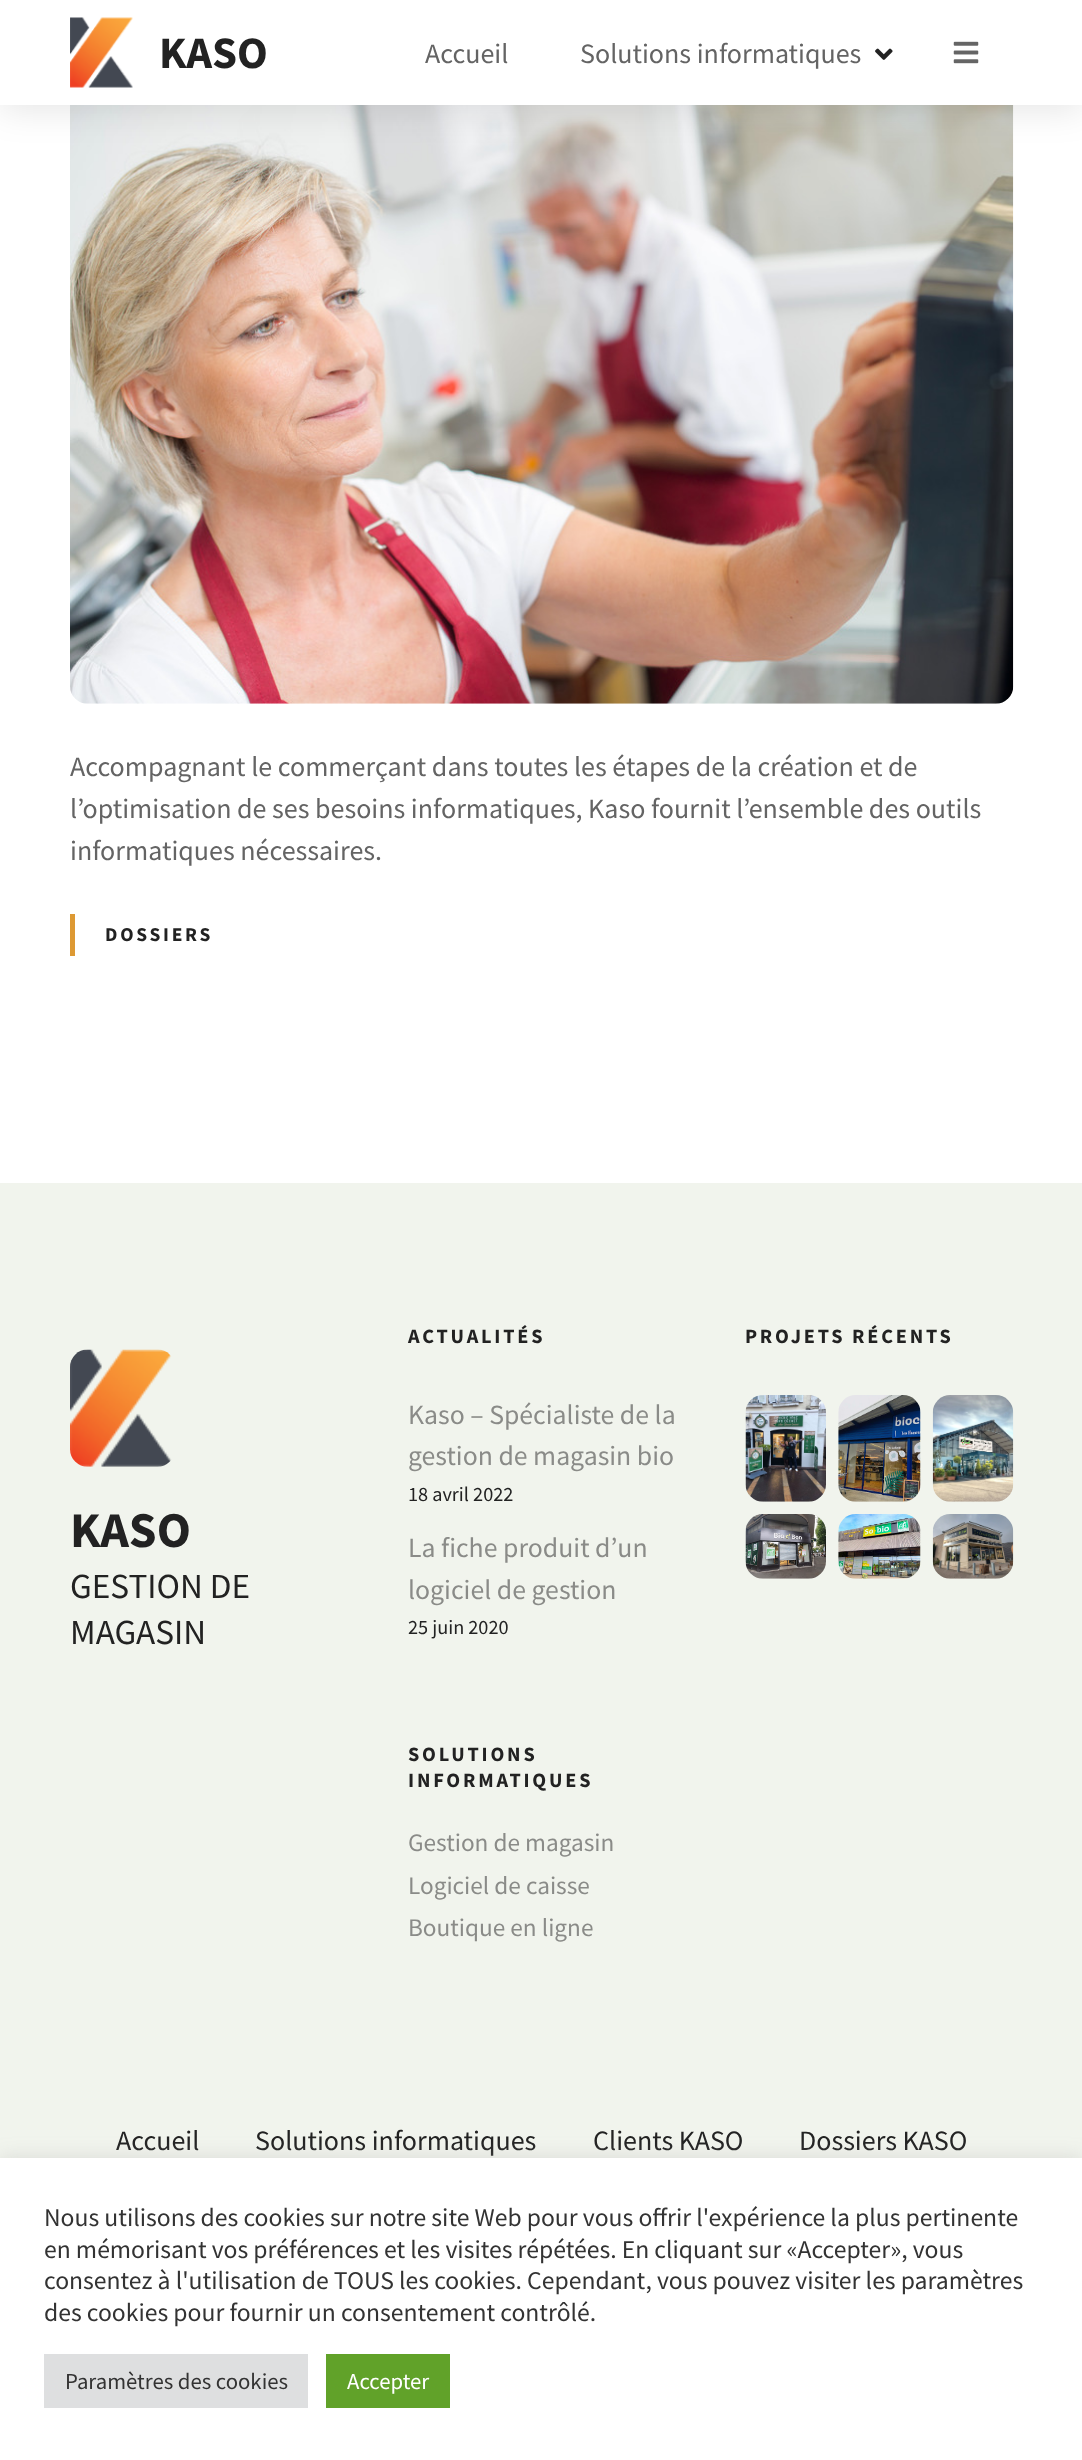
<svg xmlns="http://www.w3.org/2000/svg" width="1082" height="2460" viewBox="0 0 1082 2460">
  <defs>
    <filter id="blur1" x="-50%" y="-200%" width="200%" height="500%"><feGaussianBlur stdDeviation="17.5"/></filter>
    <filter id="blur2" x="-50%" y="-200%" width="200%" height="500%"><feGaussianBlur stdDeviation="9"/></filter>
  </defs>
  <rect width="100%" height="100%" fill="#ffffff"/>
  <image x="70" y="105" width="944" height="599" href="img4.png"/>
  <rect x="0" y="5" width="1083" height="105" fill="#000000" fill-opacity="0.1" filter="url(#blur1)"/>
  <rect x="0" y="0" width="1082" height="105" fill="#ffffff"/>
  <image x="70" y="17" width="63" height="71" href="img1.png"/>
  <text x="159" y="68" font-family="Source Sans Pro" font-size="45" font-weight="bold" fill="#222222">KASO</text>
  <text x="425" y="63" font-family="Source Sans Pro" font-size="28" fill="#646464">Accueil</text>
  <text x="580" y="63" font-family="Source Sans Pro" font-size="28" fill="#646464">Solutions informatiques</text>
  <image x="875" y="48" width="18" height="12" href="img2.png"/>
  <image x="953" y="41" width="26" height="23" href="img3.png"/>
  <text x="70" y="776" font-family="Source Sans Pro" font-size="28" fill="#646464">Accompagnant le commerçant dans toutes les étapes de la création et de</text>
  <text x="70" y="818" font-family="Source Sans Pro" font-size="28" fill="#646464">l’optimisation de ses besoins informatiques, Kaso fournit l’ensemble des outils</text>
  <text x="70" y="860" font-family="Source Sans Pro" font-size="28" fill="#646464">informatiques nécessaires.</text>
  <rect x="70" y="914" width="5" height="42" fill="#dd9933"/>
  <text x="105" y="941" font-family="Source Sans Pro" font-size="19.5" font-weight="bold" letter-spacing="2.75" fill="#222222">DOSSIERS</text>
  <rect x="0" y="1183" width="1082" height="975" fill="#f1f4ed"/>
  <text x="408" y="1343" font-family="Source Sans Pro" font-size="20.25" font-weight="bold" letter-spacing="2.8" fill="#222222">ACTUALITÉS</text>
  <text x="408" y="1424" font-family="Source Sans Pro" font-size="27.75" fill="#8a8b88">Kaso – Spécialiste de la</text>
  <text x="408" y="1465" font-family="Source Sans Pro" font-size="27.75" fill="#8a8b88">gestion de magasin bio</text>
  <text x="408" y="1501" font-family="Source Sans Pro" font-size="20.25" fill="#222222">18 avril 2022</text>
  <text x="408" y="1557" font-family="Source Sans Pro" font-size="27.75" fill="#8a8b88">La fiche produit d’un</text>
  <text x="408" y="1599" font-family="Source Sans Pro" font-size="27.75" fill="#8a8b88">logiciel de gestion</text>
  <text x="408" y="1634" font-family="Source Sans Pro" font-size="20.25" fill="#222222">25 juin 2020</text>
  <text x="745" y="1343" font-family="Source Sans Pro" font-size="20.25" font-weight="bold" letter-spacing="2.8" fill="#222222">PROJETS RÉCENTS</text>
  <image x="745" y="1395" width="81" height="107" href="img5.png"/>
  <image x="838" y="1395" width="83" height="107" href="img6.png"/>
  <image x="932" y="1395" width="82" height="107" href="img7.png"/>
  <image x="745" y="1514" width="81" height="65" href="img8.png"/>
  <image x="838" y="1514" width="83" height="65" href="img9.png"/>
  <image x="932" y="1514" width="82" height="65" href="img10.png"/>
  <image x="70" y="1349" width="102" height="118" href="img11.png"/>
  <text x="70" y="1547" font-family="Source Sans Pro" font-size="50" font-weight="bold" fill="#222222">KASO</text>
  <text x="70" y="1598" font-family="Source Sans Pro" font-size="35.25" fill="#222222">GESTION DE</text>
  <text x="70" y="1644" font-family="Source Sans Pro" font-size="35.25" fill="#222222">MAGASIN</text>
  <text x="408" y="1761" font-family="Source Sans Pro" font-size="20.25" font-weight="bold" letter-spacing="2.8" fill="#222222">SOLUTIONS</text>
  <text x="408" y="1787" font-family="Source Sans Pro" font-size="20.25" font-weight="bold" letter-spacing="2.8" fill="#222222">INFORMATIQUES</text>
  <text x="408" y="1851" font-family="Source Sans Pro" font-size="25.25" fill="#8a8b88">Gestion de magasin</text>
  <text x="408" y="1894" font-family="Source Sans Pro" font-size="25.25" fill="#8a8b88">Logiciel de caisse</text>
  <text x="408" y="1936" font-family="Source Sans Pro" font-size="25.25" fill="#8a8b88">Boutique en ligne</text>
  <text x="116" y="2150" font-family="Source Sans Pro" font-size="28" fill="#222222">Accueil</text>
  <text x="255" y="2150" font-family="Source Sans Pro" font-size="28" fill="#222222">Solutions informatiques</text>
  <text x="593" y="2150" font-family="Source Sans Pro" font-size="28" fill="#222222">Clients KASO</text>
  <text x="799" y="2150" font-family="Source Sans Pro" font-size="28" fill="#222222">Dossiers KASO</text>
  <rect x="0" y="2156" width="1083" height="303" fill="#acabab" fill-opacity="0.3" filter="url(#blur2)"/>
  <rect x="0" y="2158" width="1082" height="302" fill="#ffffff"/>
  <text x="44" y="2226" font-family="Source Sans Pro" font-size="25.65" fill="#333333">Nous utilisons des cookies sur notre site Web pour vous offrir l'expérience la plus pertinente</text>
  <text x="44" y="2258" font-family="Source Sans Pro" font-size="25.65" fill="#333333">en mémorisant vos préférences et les visites répétées. En cliquant sur «Accepter», vous</text>
  <text x="44" y="2289" font-family="Source Sans Pro" font-size="25.65" fill="#333333">consentez à l'utilisation de TOUS les cookies. Cependant, vous pouvez visiter les paramètres</text>
  <text x="44" y="2321" font-family="Source Sans Pro" font-size="25.65" fill="#333333">des cookies pour fournir un consentement contrôlé.</text>
  <rect x="44" y="2354" width="264" height="54" fill="#dedfe0"/>
  <text x="65" y="2389" font-family="Source Sans Pro" font-size="22.75" fill="#333333">Paramètres des cookies</text>
  <rect x="326" y="2354" width="124" height="54" fill="#61a229"/>
  <text x="347" y="2389" font-family="Source Sans Pro" font-size="22.75" fill="#ffffff">Accepter</text>
</svg>
